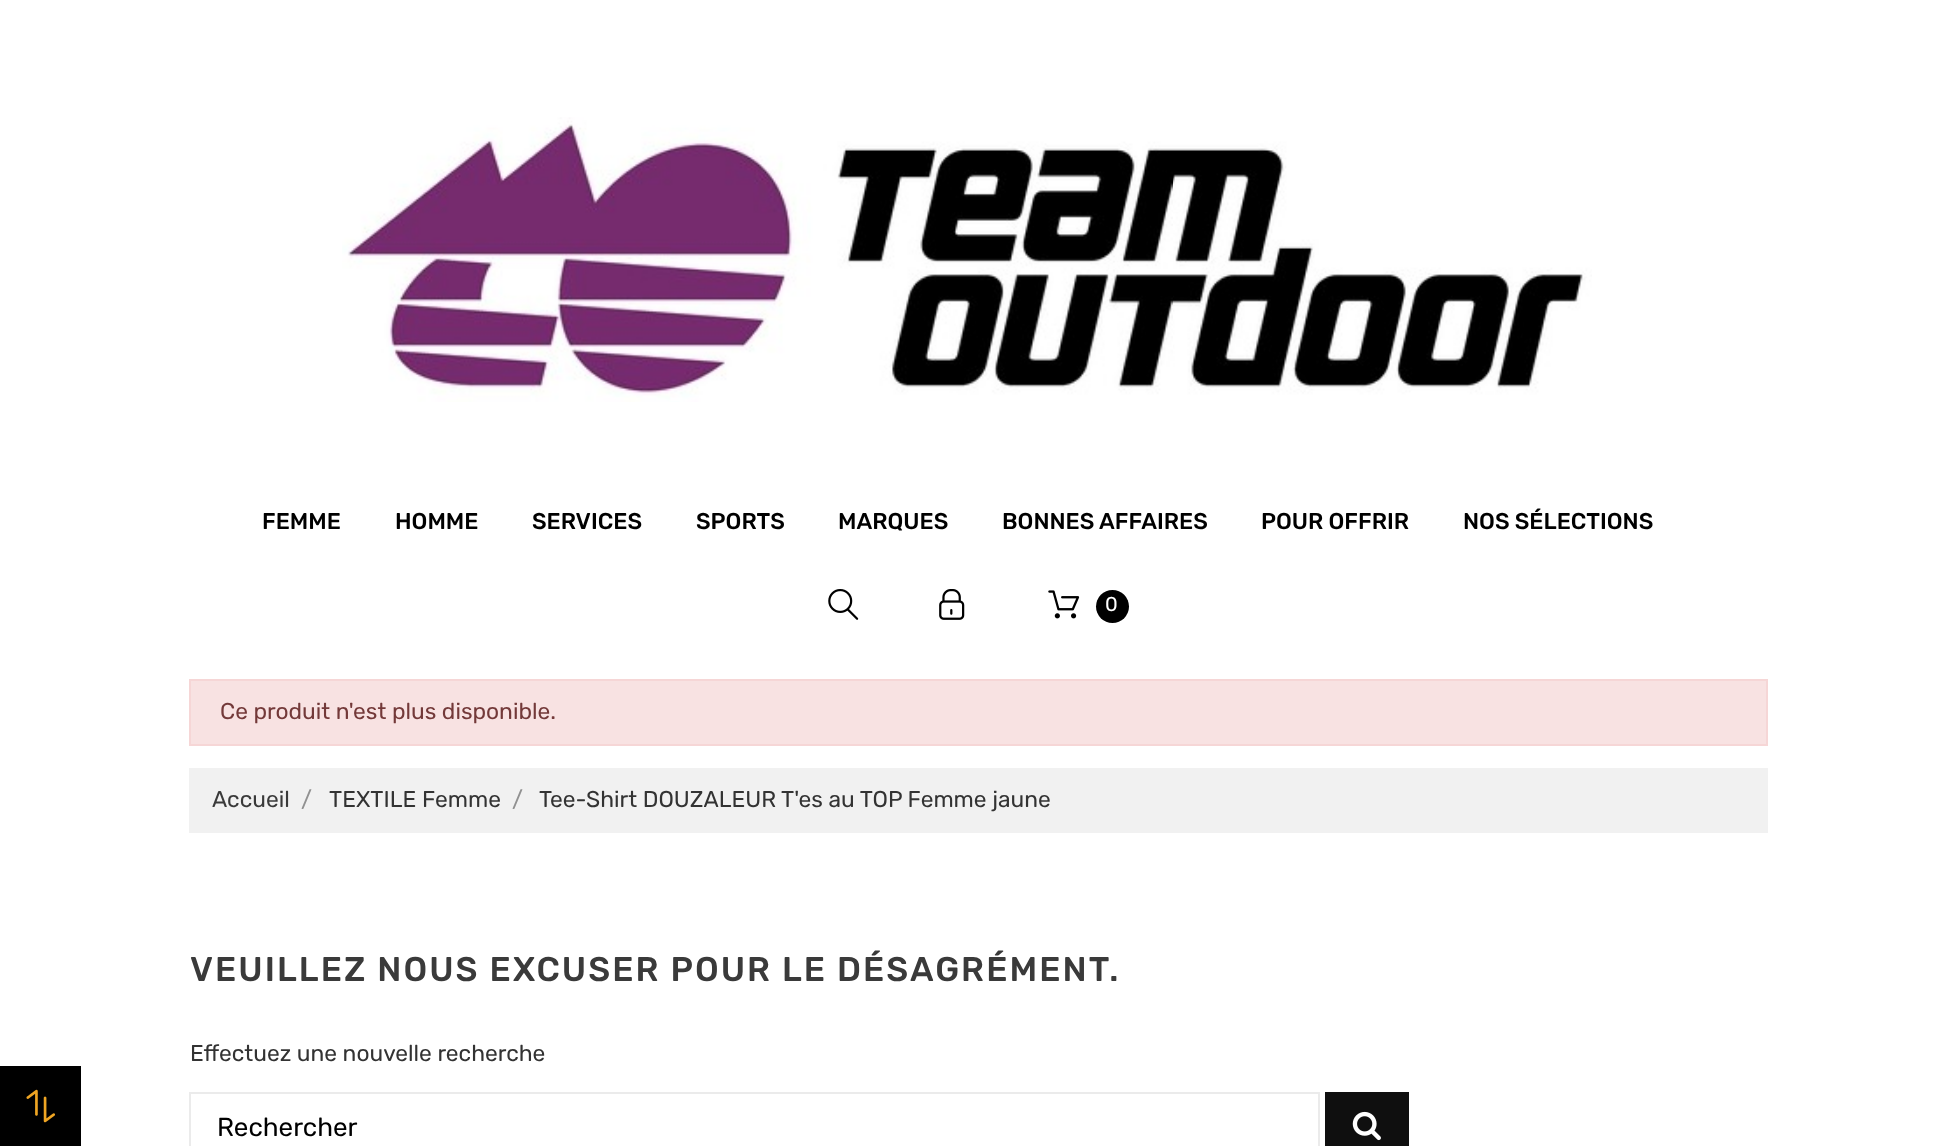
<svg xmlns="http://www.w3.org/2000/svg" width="1956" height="1146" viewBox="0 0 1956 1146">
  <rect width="100%" height="100%" fill="#ffffff"/>
  <image x="342" y="117" width="1250" height="285" href="img1.png"/>
  <text x="262" y="529" font-family="Rubik" font-size="22.75" font-weight="500" fill="#000000">FEMME</text>
  <text x="395" y="529" font-family="Rubik" font-size="22.75" font-weight="500" fill="#000000">HOMME</text>
  <text x="532" y="529" font-family="Rubik" font-size="22.75" font-weight="500" fill="#000000">SERVICES</text>
  <text x="696" y="529" font-family="Rubik" font-size="22.75" font-weight="500" fill="#000000">SPORTS</text>
  <text x="838" y="529" font-family="Rubik" font-size="22.75" font-weight="500" fill="#000000">MARQUES</text>
  <text x="1002" y="529" font-family="Rubik" font-size="22.75" font-weight="500" fill="#000000">BONNES AFFAIRES</text>
  <text x="1261" y="529" font-family="Rubik" font-size="22.75" font-weight="500" fill="#000000">POUR OFFRIR</text>
  <text x="1463" y="529" font-family="Rubik" font-size="22.75" font-weight="500" fill="#000000">NOS SÉLECTIONS</text>
  <image x="828" y="589" width="31" height="31" href="img2.png"/>
  <image x="939" y="589" width="26" height="31" href="img3.png"/>
  <image x="1048" y="590" width="32" height="29" href="img4.png"/>
  <circle cx="1112.5" cy="606.5" r="16.5" fill="#000000"/>
  <text x="1105" y="611" font-family="Rubik" font-size="20" letter-spacing="1" fill="#ffffff">0</text>
  <rect x="190" y="680" width="1577" height="65" fill="#f8e2e2" stroke="#f6d6d6" stroke-width="2"/>
  <text x="220" y="719" font-family="Rubik" font-size="22.75" fill="#733939">Ce produit n'est plus disponible.</text>
  <rect x="0" y="1066" width="81" height="80" fill="#000000"/>
  <image x="26" y="1089" width="29" height="34" href="img5.png"/>
  <rect x="189" y="768" width="1579" height="65" fill="#f1f1f1"/>
  <text x="212" y="807" font-family="Rubik" font-size="22.75" fill="#3a3a3a">Accueil</text>
  <text x="301" y="807" font-family="Rubik" font-size="22.75" fill="#919191">/</text>
  <text x="329" y="807" font-family="Rubik" font-size="22.75" fill="#333333">TEXTILE Femme</text>
  <text x="512" y="807" font-family="Rubik" font-size="22.75" fill="#919191">/</text>
  <text x="539" y="807" font-family="Rubik" font-size="22.75" fill="#333333">Tee-Shirt DOUZALEUR T'es au TOP Femme jaune</text>
  <text x="190" y="981" font-family="Rubik" font-size="34.15" font-weight="500" letter-spacing="2.05" fill="#3a3a3a">VEUILLEZ NOUS EXCUSER POUR LE DÉSAGRÉMENT.</text>
  <text x="190" y="1061" font-family="Rubik" font-size="22.75" fill="#333333">Effectuez une nouvelle recherche</text>
  <rect x="190" y="1093" width="1129" height="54" fill="none" stroke="#ebebeb" stroke-width="2"/>
  <text x="217" y="1136" font-family="Rubik" font-size="26" fill="#000000">Rechercher</text>
  <rect x="1325" y="1092" width="84" height="54" fill="#0f0f0f"/>
  <image x="1352" y="1111" width="29" height="30" href="img6.png"/>
</svg>
